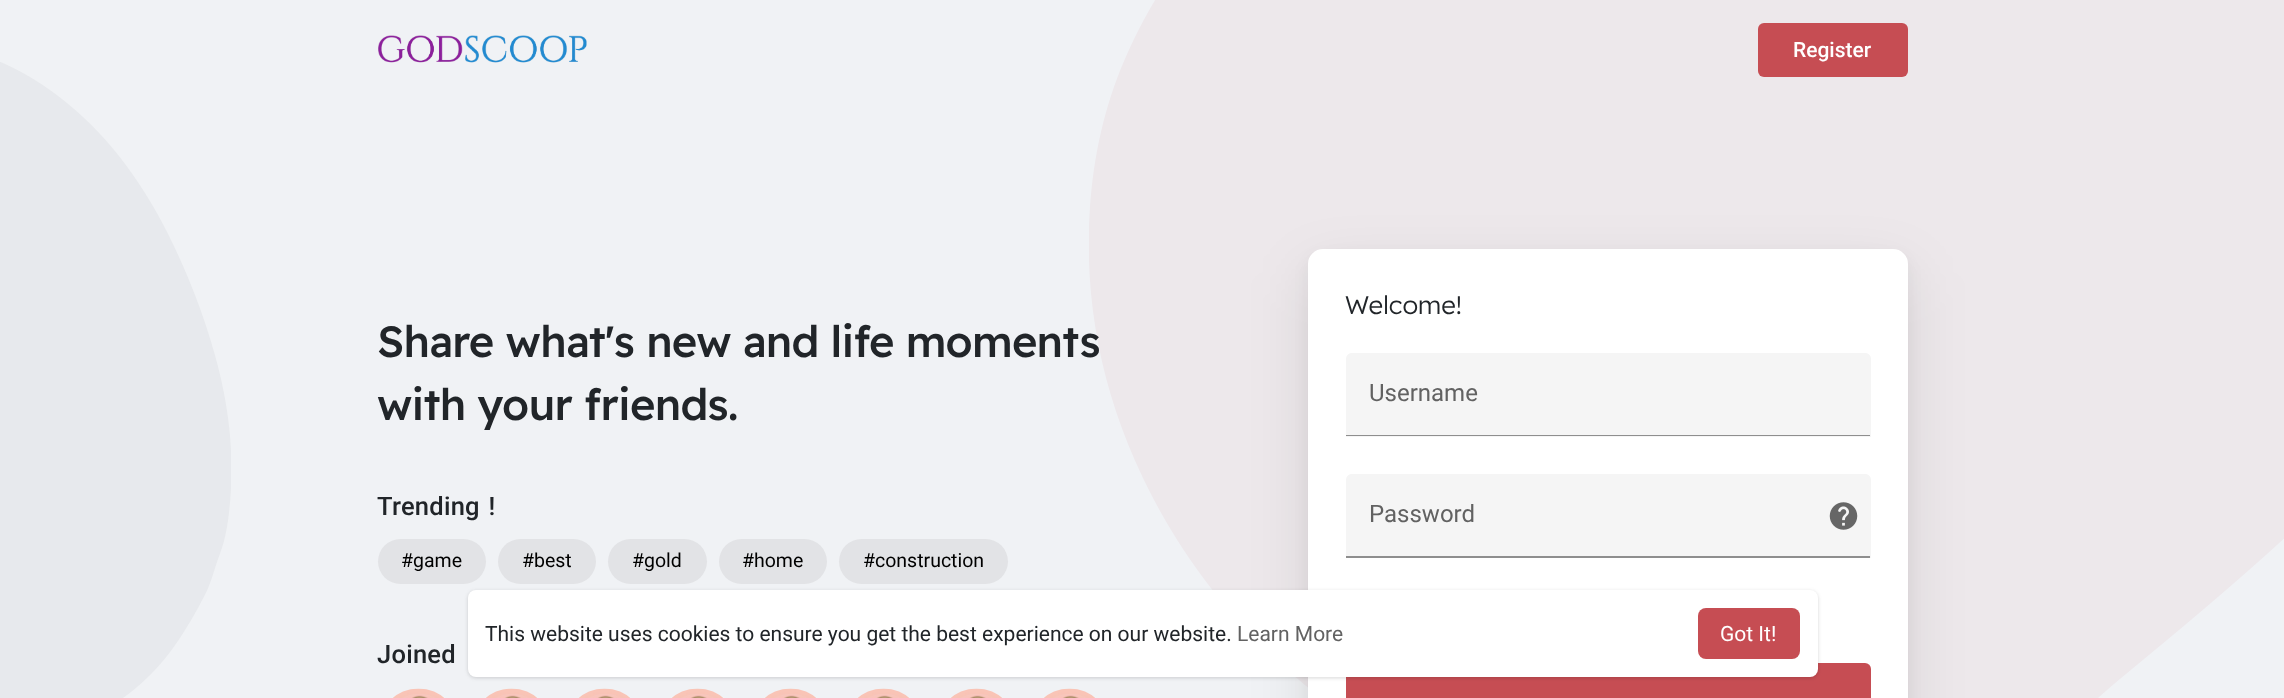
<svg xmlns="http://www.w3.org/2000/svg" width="2284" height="698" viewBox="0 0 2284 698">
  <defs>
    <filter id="blur1" x="-50%" y="-200%" width="200%" height="500%"><feGaussianBlur stdDeviation="30"/></filter>
    <filter id="blur2" x="-50%" y="-200%" width="200%" height="500%"><feGaussianBlur stdDeviation="7.5"/></filter>
    <filter id="blur3" x="-50%" y="-200%" width="200%" height="500%"><feGaussianBlur stdDeviation="1.5"/></filter>
    <filter id="blur4" x="-50%" y="-200%" width="200%" height="500%"><feGaussianBlur stdDeviation="2"/></filter>
  </defs>
  <rect width="100%" height="100%" fill="#f0f2f5"/>
  <image x="1089" y="0" width="1195" height="698" href="img1.png"/>
  <image x="0" y="62" width="231" height="636" href="img2.png"/>
  <image x="378" y="35" width="209" height="28" href="img3.png"/>
  <rect x="1758" y="23" width="150" height="54" rx="6" fill="#c64d53"/>
  <text x="1793" y="57" font-family="Roboto" font-size="21" font-weight="500" fill="#ffffff">Register</text>
  <text x="377" y="357" font-family="Readex Pro" font-size="43.5" font-weight="500" letter-spacing="-0.75" fill="#212529">Share what's new and life moments</text>
  <text x="377" y="420" font-family="Readex Pro" font-size="43.5" font-weight="500" letter-spacing="-0.75" fill="#212529">with your friends.</text>
  <text x="377" y="515" word-spacing="2" font-family="Roboto" font-size="25.5" font-weight="500" letter-spacing="0.25" fill="#212529">Trending !</text>
  <rect x="378" y="539" width="108" height="45" rx="22.5" fill="#e2e3e6"/>
  <text x="401" y="567" font-family="Roboto" font-size="19.5" fill="#000000">#game</text>
  <rect x="498" y="539" width="98" height="45" rx="22.5" fill="#e2e3e6"/>
  <text x="522" y="567" font-family="Roboto" font-size="19.5" fill="#000000">#best</text>
  <rect x="608" y="539" width="99" height="45" rx="22.5" fill="#e2e3e6"/>
  <text x="632" y="567" font-family="Roboto" font-size="19.5" fill="#000000">#gold</text>
  <rect x="719" y="539" width="108" height="45" rx="22.5" fill="#e2e3e6"/>
  <text x="742" y="567" font-family="Roboto" font-size="19.5" fill="#000000">#home</text>
  <rect x="839" y="539" width="169" height="45" rx="22.5" fill="#e2e3e6"/>
  <text x="863" y="567" font-family="Roboto" font-size="19.5" fill="#000000">#construction</text>
  <text x="377" y="663" word-spacing="2" font-family="Roboto" font-size="25.5" font-weight="500" letter-spacing="0.25" fill="#212529">Joined</text>
  <image x="393" y="688" width="51" height="10" href="img4.png"/>
  <image x="486" y="688" width="51" height="10" href="img5.png"/>
  <image x="579" y="688" width="51" height="10" href="img4.png"/>
  <image x="672" y="688" width="51" height="10" href="img6.png"/>
  <image x="765" y="688" width="51" height="10" href="img7.png"/>
  <image x="858" y="688" width="51" height="10" href="img6.png"/>
  <image x="951" y="688" width="51" height="10" href="img4.png"/>
  <image x="1044" y="688" width="51" height="10" href="img4.png"/>
  <rect x="1308" y="272" width="600" height="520" rx="15" fill="#000000" fill-opacity="0.1" filter="url(#blur1)"/>
  <rect x="1308" y="257" width="600" height="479" rx="15" fill="#000000" fill-opacity="0.05" filter="url(#blur2)"/>
  <rect x="1308" y="249" width="600" height="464" rx="15" fill="#ffffff"/>
  <text x="1345" y="314" font-family="Readex Pro" font-size="25.5" font-weight="300" fill="#212529">Welcome!</text>
  <path d="M1352 353H1865C1868.5 353 1871 355.5 1871 359V437H1346V359C1346 355.5 1348.5 353 1352 353Z" fill="#f5f5f5"/>
  <rect x="1346" y="435" width="524" height="1" fill="#8e8e8e"/>
  <text x="1369" y="401" font-family="Roboto" font-size="24" fill="#626262">Username</text>
  <path d="M1352 474H1865C1868.5 474 1871 476.5 1871 480V558H1346V480C1346 476.5 1348.5 474 1352 474Z" fill="#f5f5f5"/>
  <rect x="1346" y="556" width="524" height="2" fill="#8e8e8e"/>
  <text x="1369" y="522" font-family="Roboto" font-size="24" fill="#626262">Password</text>
  <image x="1829" y="502" width="29" height="28" href="img8.png"/>
  <rect x="1346" y="663" width="525" height="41" rx="6" fill="#c64d53"/>
  <rect x="468" y="591" width="1350" height="87" rx="8" fill="#000000" fill-opacity="0.06" filter="url(#blur3)"/>
  <rect x="468" y="591" width="1350" height="87" rx="8" fill="#000000" fill-opacity="0.1" filter="url(#blur4)"/>
  <rect x="468" y="590" width="1350" height="87" rx="8" fill="#ffffff"/>
  <text x="485" y="641" font-family="Roboto" font-size="21" fill="#212529">This website uses cookies to ensure you get the best experience on our website.</text>
  <text x="1237" y="641" font-family="Roboto" font-size="21" fill="#626262">Learn More</text>
  <rect x="1698" y="608" width="102" height="51" rx="8" fill="#c64d53"/>
  <text x="1720" y="641" font-family="Roboto" font-size="21" fill="#ffffff">Got It!</text>
</svg>
